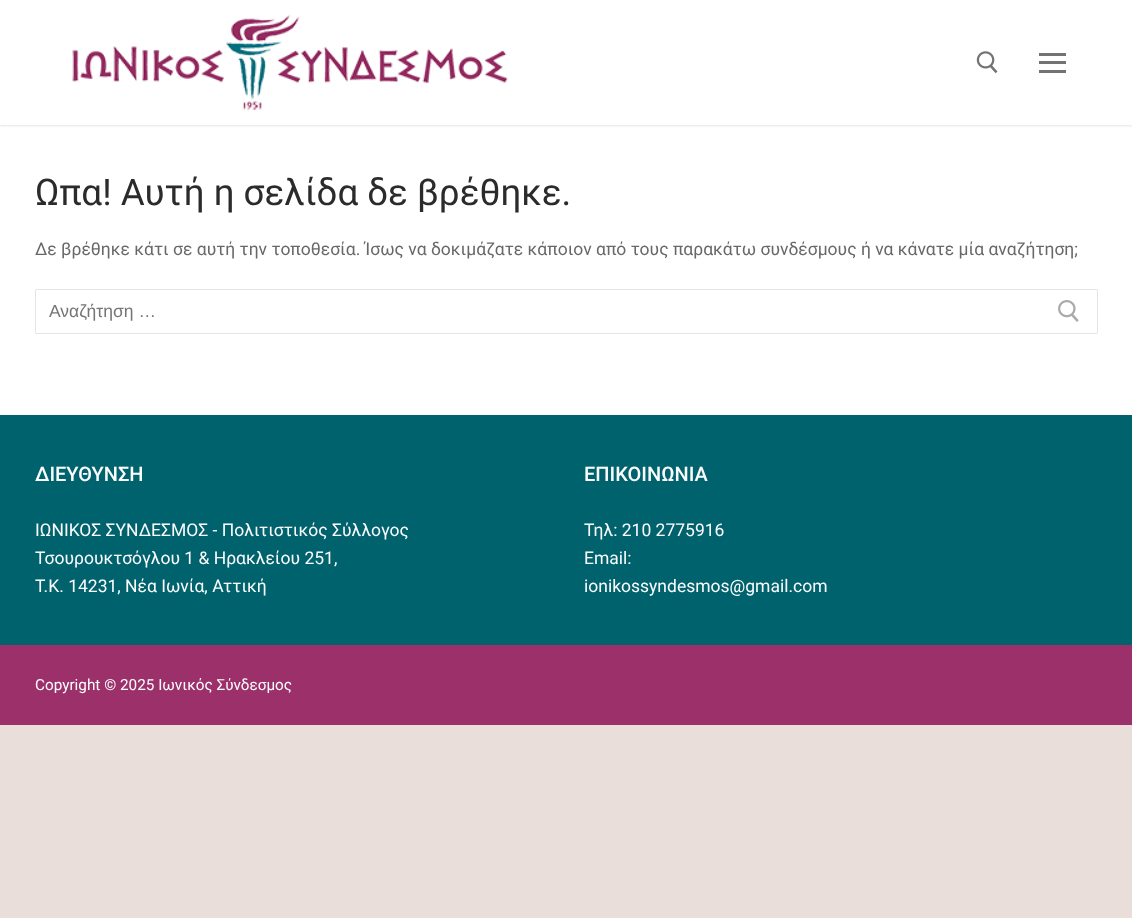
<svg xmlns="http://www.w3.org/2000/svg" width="1132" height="918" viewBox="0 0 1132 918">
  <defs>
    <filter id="blur1" x="-50%" y="-200%" width="200%" height="500%"><feGaussianBlur stdDeviation="1"/></filter>
  </defs>
  <rect width="100%" height="100%" fill="#eadeda"/>
  <rect x="0" y="125" width="1132" height="290" fill="#ffffff"/>
  <rect x="0" y="1" width="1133" height="125" fill="#e1e5ea" filter="url(#blur1)"/>
  <rect x="0" y="0" width="1132" height="125" fill="#ffffff"/>
  <image x="72" y="14" width="436" height="97" href="img1.png"/>
  <image x="976" y="51" width="22" height="23" href="img2.png"/>
  <rect x="1039" y="61" width="27" height="3" fill="#737373"/>
  <rect x="1039" y="53" width="27" height="3" fill="#737373"/>
  <rect x="1039" y="70" width="27" height="3" fill="#737373"/>
  <text x="35" y="205" font-family="Roboto" font-size="36.75" fill="#2b2b2b">Ωπα! Αυτή η σελίδα δε βρέθηκε.</text>
  <text x="35" y="255" font-family="Roboto" font-size="17.5" fill="#686868">Δε βρέθηκε κάτι σε αυτή την τοποθεσία. Ίσως να δοκιμάζατε κάποιον από τους παρακάτω συνδέσμους ή να κάνατε μία αναζήτηση;</text>
  <rect x="35.5" y="289.5" width="1062" height="44" rx="0.5" fill="none" stroke="#e5e5e5"/>
  <text x="49" y="317" font-family="Liberation Sans" font-size="17.5" fill="#757575">Αναζήτηση …</text>
  <image x="1058" y="300" width="21" height="22" href="img3.png"/>
  <rect x="0" y="415" width="1132" height="230" fill="#00626d"/>
  <text x="35" y="481" font-family="Roboto" font-size="20" font-weight="500" fill="#fcfdfe">ΔΙΕΥΘΥΝΣΗ</text>
  <text x="35" y="536" font-family="Roboto" font-size="17.5" fill="#fcfdfe">ΙΩΝΙΚΟΣ ΣΥΝΔΕΣΜΟΣ - Πολιτιστικός Σύλλογος</text>
  <text x="35" y="564" font-family="Roboto" font-size="17.5" fill="#fcfdfe">Τσουρουκτσόγλου 1 &amp; Ηρακλείου 251,</text>
  <text x="35" y="592" font-family="Roboto" font-size="17.5" fill="#fcfdfe">T.K. 14231, Νέα Ιωνία, Αττική</text>
  <text x="584" y="481" font-family="Roboto" font-size="20" font-weight="500" fill="#fcfdfe">ΕΠΙΚΟΙΝΩΝΙΑ</text>
  <text x="584" y="536" font-family="Roboto" font-size="17.5" fill="#fcfdfe">Τηλ: 210 2775916</text>
  <text x="584" y="564" font-family="Roboto" font-size="17.5" fill="#fcfdfe">Email:</text>
  <text x="584" y="592" font-family="Roboto" font-size="17.5" fill="#fcfdfe">ionikossyndesmos@gmail.com</text>
  <rect x="0" y="645" width="1132" height="80" fill="#9c306a"/>
  <text x="35" y="690" font-family="Roboto" font-size="15.3" fill="#fcfdfe">Copyright © 2025 Ιωνικός Σύνδεσμος</text>
</svg>
